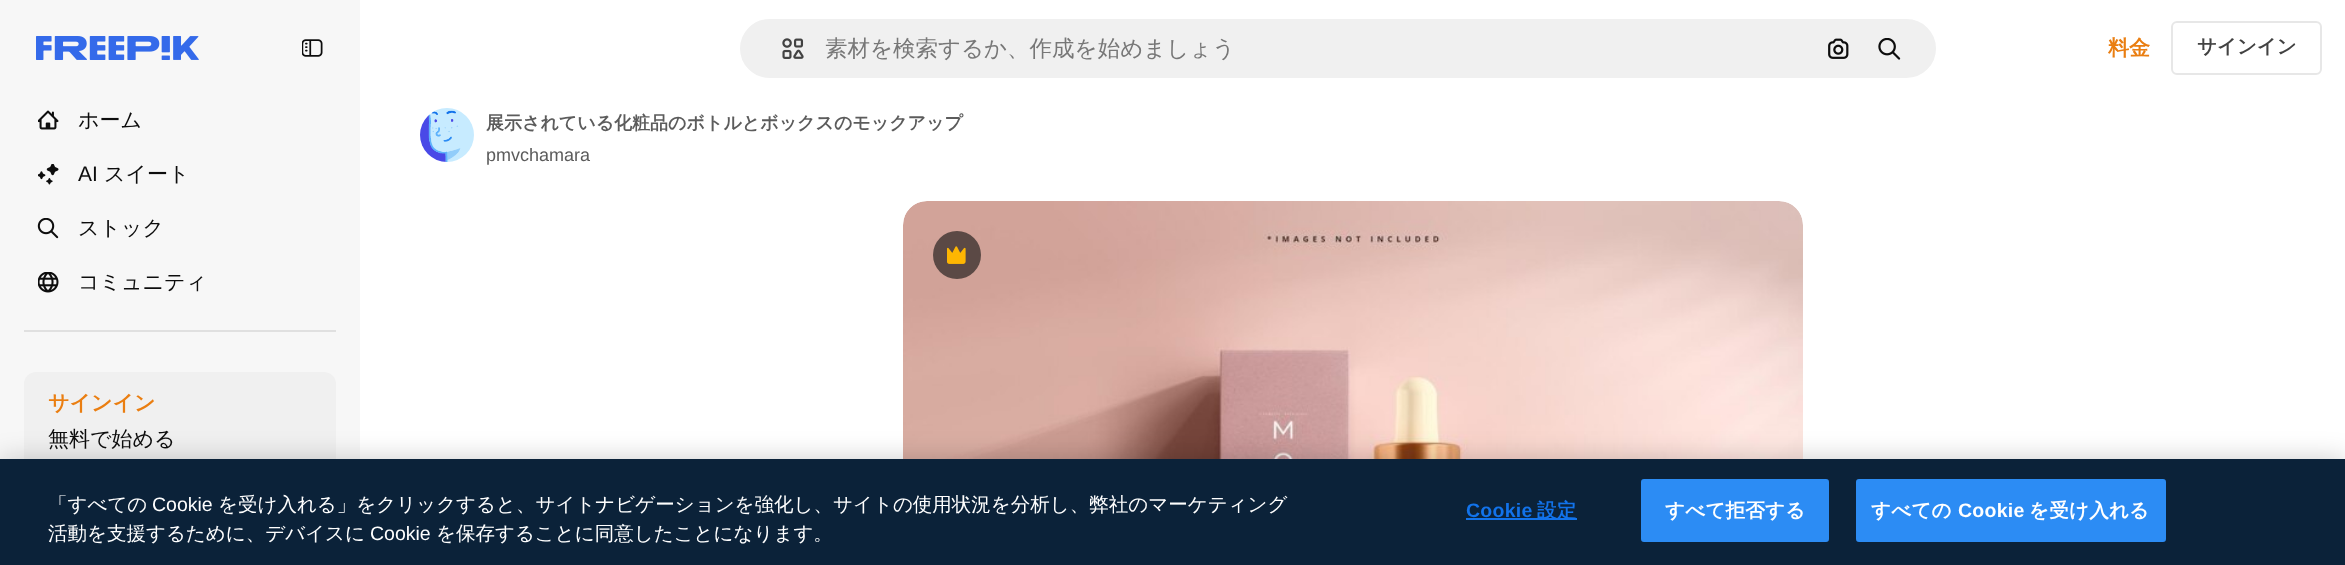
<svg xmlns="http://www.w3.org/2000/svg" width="2345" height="565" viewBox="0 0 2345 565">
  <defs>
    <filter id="blur1" x="-50%" y="-200%" width="200%" height="500%"><feGaussianBlur stdDeviation="13.5"/></filter>
  </defs>
  <rect width="100%" height="100%" fill="#ffffff"/>
  <rect x="0" y="0" width="360" height="459" fill="#f7f7f7"/>
  <image x="36" y="36" width="163" height="24" href="img1.png"/>
  <image x="302" y="39" width="21" height="18" href="img2.png"/>
  <image x="38" y="110" width="21" height="20" href="img3.png"/>
  <text x="78" y="127" font-family="WenQuanYi Zen Hei" font-size="21" font-weight="500" fill="#0d0d0d">ホーム</text>
  <image x="38" y="164" width="21" height="21" href="img4.png"/>
  <text x="78" y="181" font-family="Liberation Sans" font-size="21" fill="#0d0d0d">AI</text>
  <text x="104" y="181" font-family="WenQuanYi Zen Hei" font-size="21" font-weight="500" fill="#0d0d0d">スイート</text>
  <image x="37" y="218" width="22" height="21" href="img5.png"/>
  <text x="78" y="235" font-family="WenQuanYi Zen Hei" font-size="21" font-weight="500" fill="#0d0d0d">ストック</text>
  <image x="38" y="272" width="21" height="21" href="img6.png"/>
  <text x="78" y="289" font-family="WenQuanYi Zen Hei" font-size="21" font-weight="500" fill="#0d0d0d">コミュニティ</text>
  <rect x="24" y="330" width="312" height="2" fill="#e0e0e0"/>
  <rect x="24" y="372" width="312" height="98" rx="12" fill="#f0f0f0"/>
  <text x="48" y="410" font-family="WenQuanYi Zen Hei" font-size="21" font-weight="bold" fill="#ea7e11">サインイン</text>
  <text x="48" y="446" font-family="WenQuanYi Zen Hei" font-size="21" font-weight="500" fill="#0d0d0d">無料で始める</text>
  <rect x="739" y="18" width="1198" height="61" rx="30.5" fill="#f0f0f0" stroke="#ffffff" stroke-width="2"/>
  <image x="782" y="38" width="22" height="21" href="img7.png"/>
  <text x="825" y="56" font-family="WenQuanYi Zen Hei" font-size="22.5" font-weight="500" fill="#777777">素材を検索するか、作成を始めましょう</text>
  <image x="1828" y="38" width="21" height="21" href="img8.png"/>
  <image x="1878" y="38" width="23" height="22" href="img9.png"/>
  <text x="2108" y="55" font-family="WenQuanYi Zen Hei" font-size="21" font-weight="bold" fill="#ea7e11">料金</text>
  <rect x="2172" y="22" width="149" height="52" rx="5" fill="none" stroke="#e7e7e7" stroke-width="2"/>
  <text x="2197" y="53" font-family="WenQuanYi Zen Hei" font-size="19.5" font-weight="bold" fill="#424242">サインイン</text>
  <image x="420" y="108" width="54" height="54" href="img10.png"/>
  <text x="486" y="129" font-family="WenQuanYi Zen Hei" font-size="18" font-weight="bold" fill="#5c5c5c">展示されている化粧品のボトルとボックスのモックアップ</text>
  <text x="486" y="161" font-family="Liberation Sans" font-size="18" fill="#5c5c5c">pmvchamara</text>
  <image x="903" y="201" width="900" height="258" href="img11.png"/>
  <circle cx="957" cy="255" r="24" fill="#5b4945"/>
  <image x="947" y="246" width="19" height="18" href="img12.png"/>
  <rect x="0" y="459" width="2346" height="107" fill="#000000" fill-opacity="0.2" filter="url(#blur1)"/>
  <rect x="0" y="459" width="2345" height="106" fill="#0b2239"/>
  <text x="48" y="511" font-family="WenQuanYi Zen Hei" font-size="19.5" font-weight="500" fill="#ffffff">「すべての</text>
  <text x="152" y="511" font-family="Liberation Sans" font-size="19.5" fill="#ffffff">Cookie</text>
  <text x="218" y="511" font-family="WenQuanYi Zen Hei" font-size="19.5" font-weight="500" fill="#ffffff">を受け入れる」をクリックすると、サイトナビゲーションを強化し、サイトの使用状況を分析し、弊社のマーケティング</text>
  <text x="48" y="540" font-family="WenQuanYi Zen Hei" font-size="19.5" font-weight="500" fill="#ffffff">活動を支援するために、デバイスに</text>
  <text x="370" y="540" font-family="Liberation Sans" font-size="19.5" fill="#ffffff">Cookie</text>
  <text x="436" y="540" font-family="WenQuanYi Zen Hei" font-size="19.5" font-weight="500" fill="#ffffff">を保存することに同意したことになります。</text>
  <text x="1466" y="517" font-family="Liberation Sans" font-size="19.5" font-weight="bold" letter-spacing="0.25" fill="#1273eb">Cookie</text>
  <rect x="1466" y="518" width="111" height="2" fill="#1273eb"/>
  <text x="1537" y="517" font-family="WenQuanYi Zen Hei" font-size="19.5" font-weight="bold" letter-spacing="0.25" fill="#1273eb">設定</text>
  <rect x="1642" y="480" width="186" height="61" rx="2" fill="#2c8cf4" stroke="#2c8cf4" stroke-width="2"/>
  <text x="1665" y="517" font-family="WenQuanYi Zen Hei" font-size="19.5" font-weight="bold" letter-spacing="0.25" fill="#ffffff">すべて拒否する</text>
  <rect x="1857" y="480" width="308" height="61" rx="2" fill="#2c8cf4" stroke="#2c8cf4" stroke-width="2"/>
  <text x="1871" y="517" font-family="WenQuanYi Zen Hei" font-size="19.5" font-weight="bold" letter-spacing="0.25" fill="#ffffff">すべての</text>
  <text x="1958" y="517" font-family="Liberation Sans" font-size="19.5" font-weight="bold" letter-spacing="0.25" fill="#ffffff">Cookie</text>
  <text x="2029" y="517" font-family="WenQuanYi Zen Hei" font-size="19.5" font-weight="bold" letter-spacing="0.25" fill="#ffffff">を受け入れる</text>
</svg>
